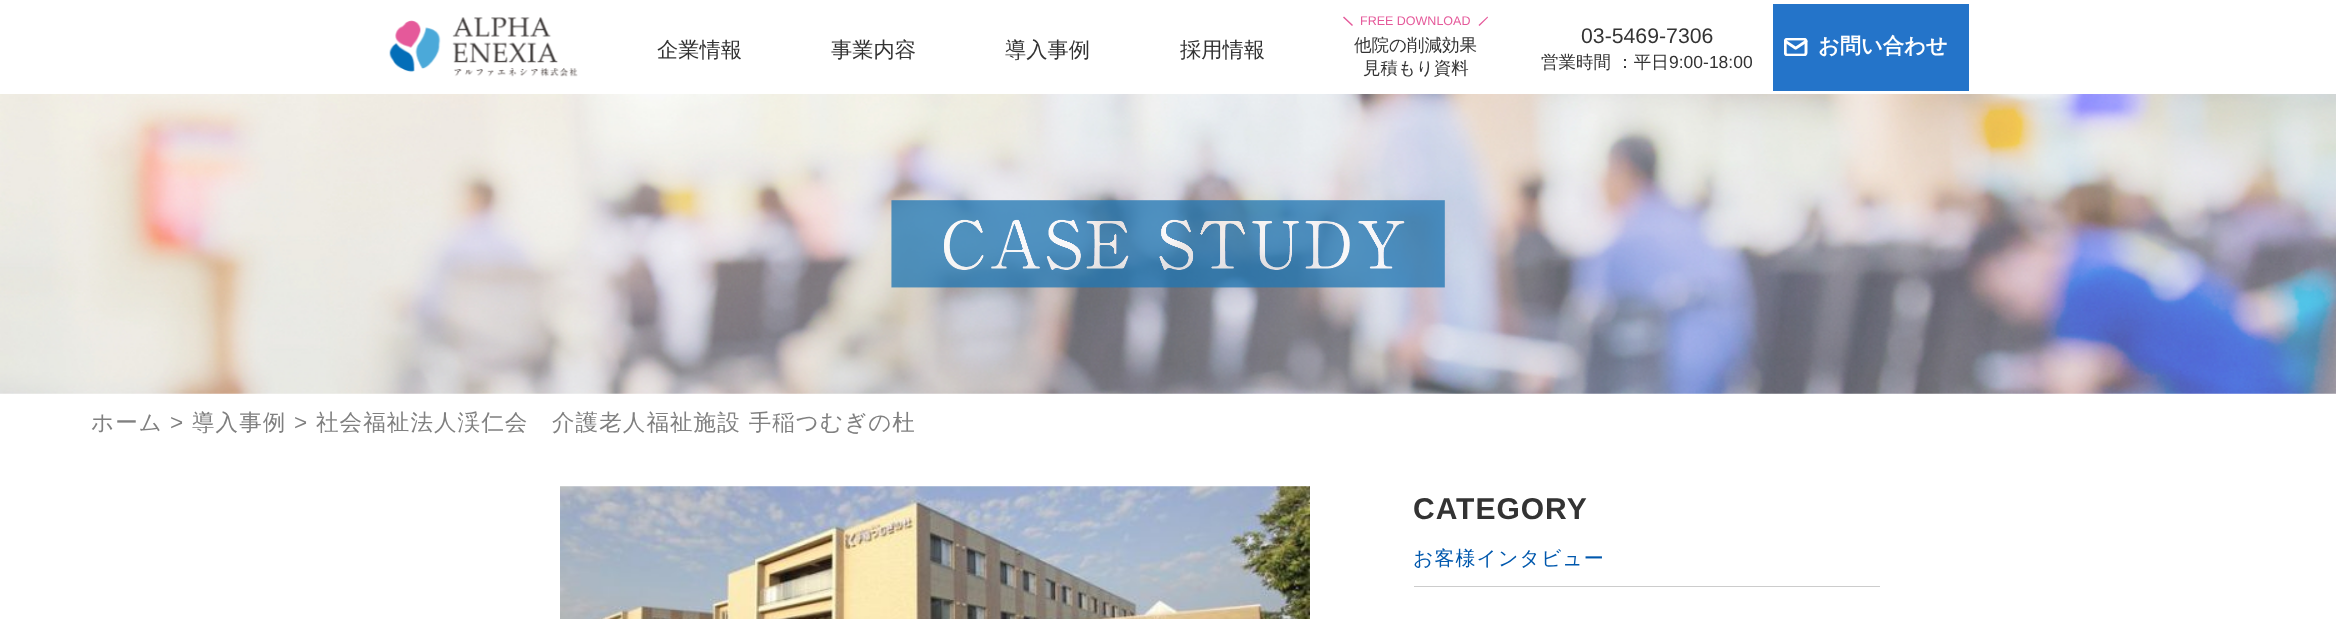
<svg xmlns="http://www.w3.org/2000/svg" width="2336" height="619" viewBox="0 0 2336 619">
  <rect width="100%" height="100%" fill="#ffffff"/>
  <image x="389" y="17" width="189" height="60" href="img1.png"/>
  <text x="657" y="57" font-family="WenQuanYi Zen Hei" font-size="21.25" font-weight="500" fill="#333333">企業情報</text>
  <text x="831" y="57" font-family="WenQuanYi Zen Hei" font-size="21.25" font-weight="500" fill="#333333">事業内容</text>
  <text x="1005" y="57" font-family="WenQuanYi Zen Hei" font-size="21.25" font-weight="500" fill="#333333">導入事例</text>
  <text x="1180" y="57" font-family="WenQuanYi Zen Hei" font-size="21.25" font-weight="500" fill="#333333">採用情報</text>
  <path d="M1344 16.5L1353 25L1352 26L1343 17.5Z" fill="#e5599a"/>
  <text x="1360" y="25" font-family="Liberation Sans" font-size="12.5" fill="#e5599a">FREE DOWNLOAD</text>
  <path d="M1478.5 25L1487.5 16.5L1488 17.5L1479.5 26Z" fill="#e5599a"/>
  <text x="1354" y="51" font-family="WenQuanYi Zen Hei" font-size="17.5" font-weight="500" fill="#333333">他院の削減効果</text>
  <text x="1363" y="74" font-family="WenQuanYi Zen Hei" font-size="17.5" font-weight="500" fill="#333333">見積もり資料</text>
  <text x="1581" y="43" font-family="Liberation Sans" font-size="21.25" fill="#333333">03-5469-7306</text>
  <text x="1541" y="68" font-family="WenQuanYi Zen Hei" font-size="17.5" font-weight="500" fill="#333333">営業時間 ：平日</text>
  <text x="1669" y="68" font-family="Liberation Sans" font-size="17.5" fill="#333333">9:00-18:00</text>
  <rect x="1773" y="4" width="196" height="87" fill="#2474c9"/>
  <image x="1784" y="38" width="24" height="18" href="img2.png"/>
  <text x="1818" y="53" font-family="WenQuanYi Zen Hei" font-size="21.25" font-weight="bold" fill="#ffffff">お問い合わせ</text>
  <image x="0" y="94" width="2336" height="300" href="img3.png"/>
  <image x="891" y="200" width="554" height="88" href="img4.png"/>
  <text x="91" y="430" font-family="WenQuanYi Zen Hei" font-size="22.5" font-weight="500" letter-spacing="1.1" fill="#808080">ホーム</text>
  <text x="170" y="430" font-family="Liberation Sans" font-size="22.5" letter-spacing="1.1" fill="#808080">&gt;</text>
  <text x="192" y="430" font-family="WenQuanYi Zen Hei" font-size="22.5" font-weight="500" letter-spacing="1.1" fill="#808080">導入事例</text>
  <text x="294" y="430" font-family="Liberation Sans" font-size="22.5" letter-spacing="1.1" fill="#808080">&gt;</text>
  <text x="316" y="430" font-family="WenQuanYi Zen Hei" font-size="22.5" font-weight="500" letter-spacing="1.1" fill="#808080">社会福祉法人渓仁会　介護老人福祉施設 手稲つむぎの杜</text>
  <image x="560" y="486" width="750" height="133" href="img5.png"/>
  <text x="1413" y="519" font-family="Liberation Sans" font-size="30" font-weight="bold" letter-spacing="1" fill="#333333">CATEGORY</text>
  <rect x="1414" y="586" width="466" height="1" fill="#cccccc"/>
  <text x="1413" y="565" font-family="WenQuanYi Zen Hei" font-size="20" font-weight="500" letter-spacing="1" fill="#0058ad">お客様インタビュー</text>
</svg>
